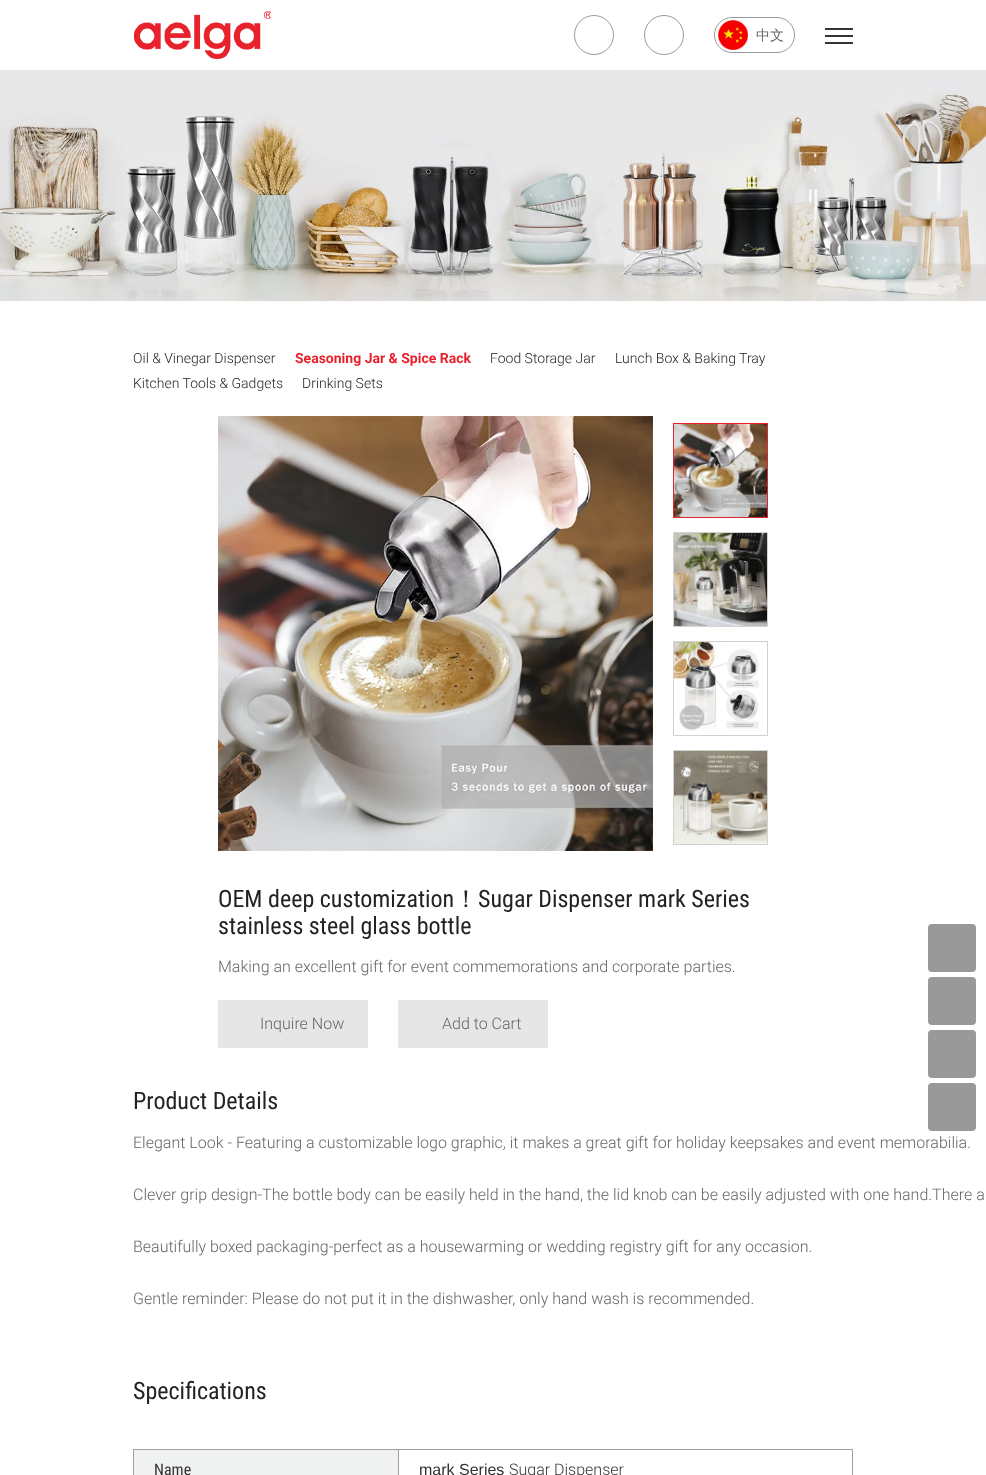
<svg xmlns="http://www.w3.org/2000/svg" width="986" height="1475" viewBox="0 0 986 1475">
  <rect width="100%" height="100%" fill="#ffffff"/>
  <image x="134" y="11" width="137" height="48" href="img1.png"/>
  <circle cx="594" cy="35" r="19.5" fill="none" stroke="#999999"/>
  <circle cx="664" cy="35" r="19.5" fill="none" stroke="#999999"/>
  <rect x="714.5" y="17.5" width="80" height="35" rx="17.5" fill="none" stroke="#999999"/>
  <image x="718" y="20" width="30" height="30" href="img2.png"/>
  <text x="756" y="40" font-family="WenQuanYi Zen Hei" font-size="14" font-weight="500" fill="#666666">中文</text>
  <rect x="825" y="28" width="28" height="2" fill="#333333"/>
  <rect x="825" y="35" width="28" height="2" fill="#333333"/>
  <rect x="825" y="42" width="28" height="2" fill="#333333"/>
  <image x="0" y="70" width="986" height="231" href="img3.png"/>
  <text x="133" y="363" font-family="Roboto" font-size="14" font-weight="300" fill="#222222">Oil &amp; Vinegar Dispenser</text>
  <text x="295" y="363" font-family="Roboto" font-size="14" font-weight="bold" fill="#e8222d">Seasoning Jar &amp; Spice Rack</text>
  <text x="490" y="363" font-family="Roboto" font-size="14" font-weight="300" fill="#222222">Food Storage Jar</text>
  <text x="615" y="363" font-family="Roboto" font-size="14" font-weight="300" fill="#222222">Lunch Box &amp; Baking Tray</text>
  <text x="133" y="388" font-family="Roboto" font-size="14" font-weight="300" fill="#222222">Kitchen Tools &amp; Gadgets</text>
  <text x="302" y="388" font-family="Roboto" font-size="14" font-weight="300" fill="#222222">Drinking Sets</text>
  <image x="218" y="416" width="435" height="435" href="img4.png"/>
  <rect x="673.5" y="423.5" width="94" height="94" fill="none" stroke="#e8222d"/>
  <image x="674" y="424" width="93" height="93" href="img5.png"/>
  <rect x="673.5" y="532.5" width="94" height="94" fill="none" stroke="#d2d2d2"/>
  <image x="674" y="533" width="93" height="93" href="img6.png"/>
  <rect x="673.5" y="641.5" width="94" height="94" fill="none" stroke="#d2d2d2"/>
  <image x="674" y="642" width="85" height="89" href="img7.png"/>
  <rect x="673.5" y="750.5" width="94" height="94" fill="none" stroke="#d2d2d2"/>
  <image x="674" y="751" width="93" height="93" href="img8.png"/>
  <text x="218" y="907" font-family="Roboto Condensed" font-size="24" fill="#222222">OEM deep customization</text>
  <text x="454" y="907" font-family="WenQuanYi Zen Hei" font-size="24" font-weight="500" fill="#222222">！</text>
  <text x="478" y="907" font-family="Roboto Condensed" font-size="24" fill="#222222">Sugar Dispenser mark Series</text>
  <text x="218" y="934" font-family="Roboto Condensed" font-size="24" fill="#222222">stainless steel glass bottle</text>
  <text x="218" y="972" font-family="Roboto" font-size="16" font-weight="300" fill="#666666">Making an excellent gift for event commemorations and corporate parties.</text>
  <rect x="218" y="1000" width="150" height="48" fill="#e6e6e6"/>
  <text x="260" y="1029" font-family="Roboto" font-size="16" font-weight="300" fill="#666666">Inquire Now</text>
  <rect x="398" y="1000" width="150" height="48" fill="#e6e6e6"/>
  <text x="442" y="1029" font-family="Roboto" font-size="16" font-weight="300" fill="#666666">Add to Cart</text>
  <text x="133" y="1109" font-family="Roboto Condensed" font-size="24" fill="#222222">Product Details</text>
  <text x="133" y="1148" font-family="Roboto" font-size="16" font-weight="300" fill="#666666">Elegant Look - Featuring a customizable logo graphic, it makes a great gift for holiday keepsakes and event memorabilia.</text>
  <text x="133" y="1200" font-family="Roboto" font-size="16" font-weight="300" fill="#666666">Clever grip design-The bottle body can be easily held in the hand, the lid knob can be easily adjusted with one hand.There a</text>
  <text x="133" y="1252" font-family="Roboto" font-size="16" font-weight="300" fill="#666666">Beautifully boxed packaging-perfect as a housewarming or wedding registry gift for any occasion.</text>
  <text x="133" y="1304" font-family="Roboto" font-size="16" font-weight="300" fill="#666666">Gentle reminder: Please do not put it in the dishwasher, only hand wash is recommended.</text>
  <text x="133" y="1399" font-family="Roboto Condensed" font-size="24" fill="#222222">Specifications</text>
  <rect x="134" y="1450" width="264" height="25" fill="#f0f2f2"/>
  <rect x="398" y="1449" width="455" height="1" fill="#a0a0a0"/>
  <rect x="398" y="1449" width="1" height="26" fill="#a0a0a0"/>
  <rect x="133" y="1449" width="266" height="1" fill="#a0a0a0"/>
  <rect x="133" y="1449" width="1" height="26" fill="#a0a0a0"/>
  <text x="154" y="1475" font-family="Roboto Condensed" font-size="16" fill="#333333">Name</text>
  <rect x="852" y="1449" width="1" height="26" fill="#a0a0a0"/>
  <text x="419" y="1475" font-family="Liberation Sans" font-size="16" fill="#333333">mark Series</text>
  <text x="509" y="1475" font-family="Roboto" font-size="16" font-weight="300" fill="#333333">Sugar Dispenser</text>
  <rect x="928" y="924" width="48" height="48" rx="4" fill="#999999"/>
  <rect x="928" y="977" width="48" height="48" rx="4" fill="#999999"/>
  <rect x="928" y="1030" width="48" height="48" rx="4" fill="#999999"/>
  <rect x="928" y="1083" width="48" height="48" rx="4" fill="#999999"/>
</svg>
